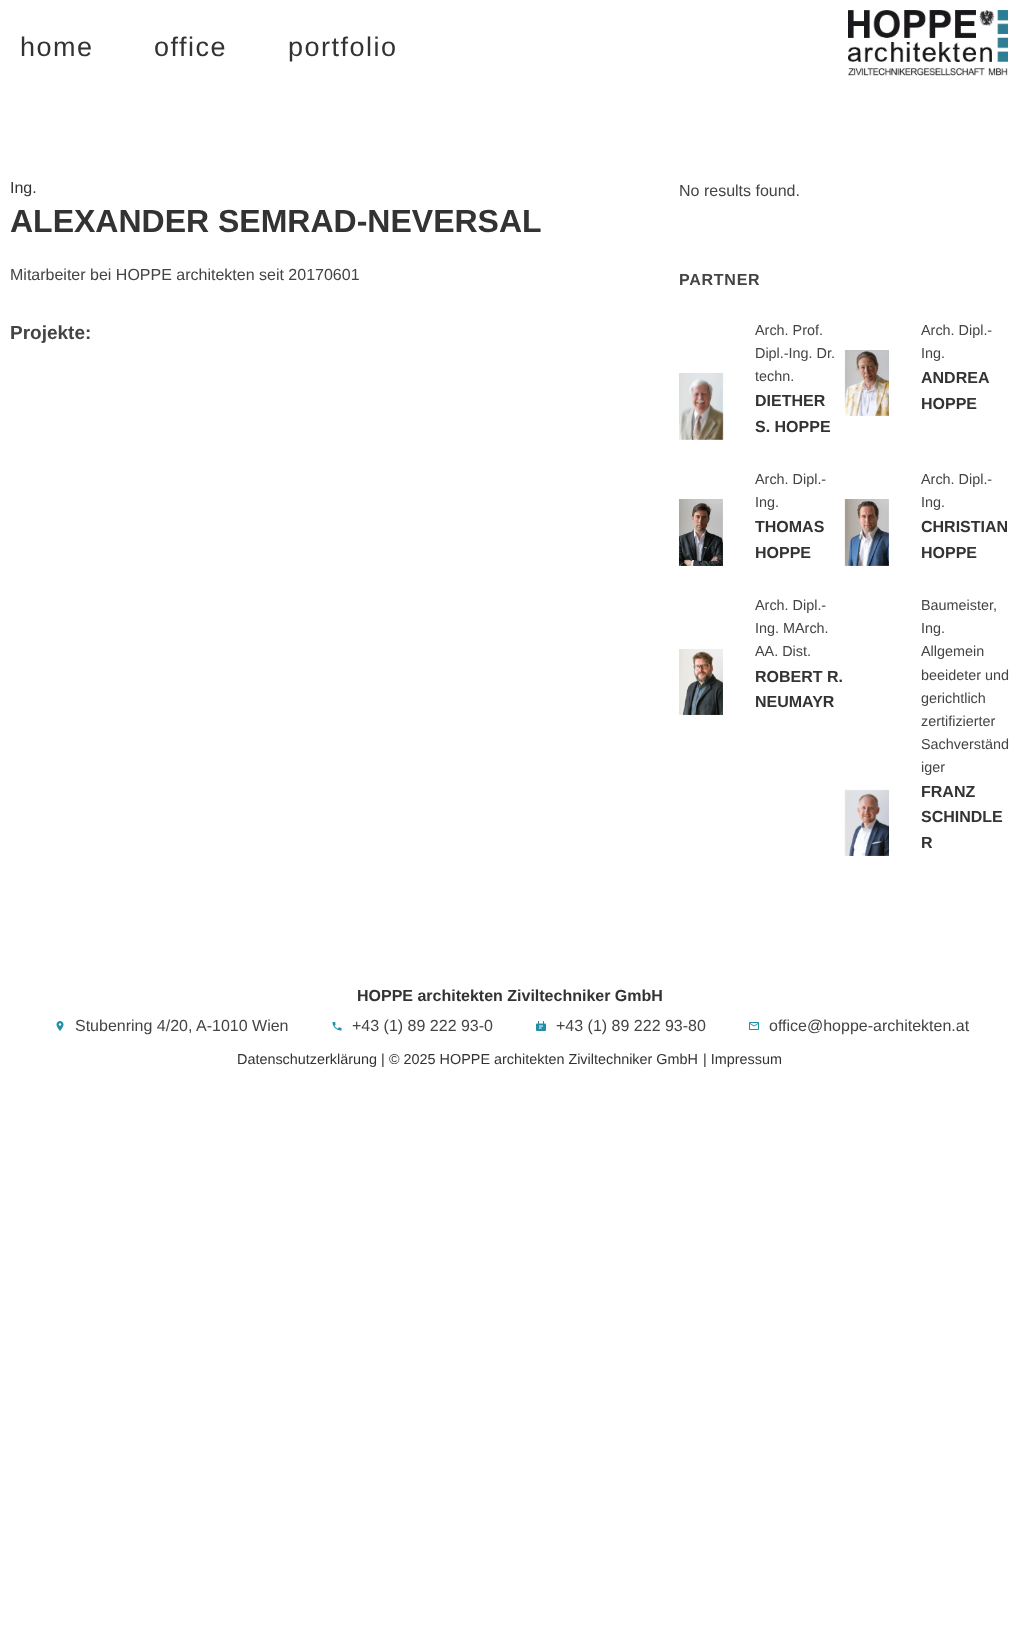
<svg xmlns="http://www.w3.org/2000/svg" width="1019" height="1634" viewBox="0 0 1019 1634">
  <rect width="100%" height="100%" fill="#ffffff"/>
  <text x="20" y="56" font-family="Liberation Sans" font-size="27" letter-spacing="1.5" fill="#333333">home</text>
  <text x="154" y="56" font-family="Liberation Sans" font-size="27" letter-spacing="1.5" fill="#333333">office</text>
  <text x="288" y="56" font-family="Liberation Sans" font-size="27" letter-spacing="1.5" fill="#333333">portfolio</text>
  <image x="848" y="10" width="160" height="66" href="img1.png"/>
  <text x="10" y="193" font-family="Liberation Sans" font-size="16" fill="#333333">Ing.</text>
  <text x="10" y="232" font-family="Liberation Sans" font-size="32" font-weight="bold" fill="#333333">ALEXANDER SEMRAD-NEVERSAL</text>
  <text x="10" y="280" font-family="Liberation Sans" font-size="16" fill="#444444">Mitarbeiter bei HOPPE architekten seit 20170601</text>
  <text x="10" y="339" font-family="Liberation Sans" font-size="19" font-weight="bold" fill="#444444">Projekte:</text>
  <text x="679" y="196" font-family="Liberation Sans" font-size="16" fill="#444444">No results found.</text>
  <text x="679" y="285" font-family="Liberation Sans" font-size="16" font-weight="bold" letter-spacing="0.75" fill="#444444">PARTNER</text>
  <image x="679" y="373" width="45" height="67" href="img2.png"/>
  <text x="755" y="335" font-family="Liberation Sans" font-size="14.4" fill="#444444">Arch. Prof.</text>
  <text x="755" y="358" font-family="Liberation Sans" font-size="14.4" fill="#444444">Dipl.-Ing. Dr.</text>
  <text x="755" y="381" font-family="Liberation Sans" font-size="14.4" fill="#444444">techn.</text>
  <text x="755" y="406" font-family="Liberation Sans" font-size="16" font-weight="bold" fill="#333333">DIETHER</text>
  <text x="755" y="432" font-family="Liberation Sans" font-size="16" font-weight="bold" fill="#333333">S. HOPPE</text>
  <image x="844" y="350" width="45" height="66" href="img3.png"/>
  <text x="921" y="335" font-family="Liberation Sans" font-size="14.4" fill="#444444">Arch. Dipl.-</text>
  <text x="921" y="358" font-family="Liberation Sans" font-size="14.4" fill="#444444">Ing.</text>
  <text x="921" y="383" font-family="Liberation Sans" font-size="16" font-weight="bold" fill="#333333">ANDREA</text>
  <text x="921" y="409" font-family="Liberation Sans" font-size="16" font-weight="bold" fill="#333333">HOPPE</text>
  <image x="679" y="499" width="44" height="67" href="img4.png"/>
  <text x="755" y="484" font-family="Liberation Sans" font-size="14.4" fill="#444444">Arch. Dipl.-</text>
  <text x="755" y="507" font-family="Liberation Sans" font-size="14.4" fill="#444444">Ing.</text>
  <text x="755" y="532" font-family="Liberation Sans" font-size="16" font-weight="bold" fill="#333333">THOMAS</text>
  <text x="755" y="558" font-family="Liberation Sans" font-size="16" font-weight="bold" fill="#333333">HOPPE</text>
  <image x="844" y="499" width="45" height="67" href="img5.png"/>
  <text x="921" y="484" font-family="Liberation Sans" font-size="14.4" fill="#444444">Arch. Dipl.-</text>
  <text x="921" y="507" font-family="Liberation Sans" font-size="14.4" fill="#444444">Ing.</text>
  <text x="921" y="532" font-family="Liberation Sans" font-size="16" font-weight="bold" fill="#333333">CHRISTIAN</text>
  <text x="921" y="558" font-family="Liberation Sans" font-size="16" font-weight="bold" fill="#333333">HOPPE</text>
  <image x="679" y="649" width="44" height="66" href="img6.png"/>
  <text x="755" y="610" font-family="Liberation Sans" font-size="14.4" fill="#444444">Arch. Dipl.-</text>
  <text x="755" y="633" font-family="Liberation Sans" font-size="14.4" fill="#444444">Ing. MArch.</text>
  <text x="755" y="656" font-family="Liberation Sans" font-size="14.4" fill="#444444">AA. Dist.</text>
  <text x="755" y="682" font-family="Liberation Sans" font-size="16" font-weight="bold" fill="#333333">ROBERT R.</text>
  <text x="755" y="707" font-family="Liberation Sans" font-size="16" font-weight="bold" fill="#333333">NEUMAYR</text>
  <image x="844" y="789" width="45" height="67" href="img7.png"/>
  <text x="921" y="610" font-family="Liberation Sans" font-size="14.4" fill="#444444">Baumeister,</text>
  <text x="921" y="633" font-family="Liberation Sans" font-size="14.4" fill="#444444">Ing.</text>
  <text x="921" y="656" font-family="Liberation Sans" font-size="14.4" fill="#444444">Allgemein</text>
  <text x="921" y="680" font-family="Liberation Sans" font-size="14.4" fill="#444444">beeideter und</text>
  <text x="921" y="703" font-family="Liberation Sans" font-size="14.4" fill="#444444">gerichtlich</text>
  <text x="921" y="726" font-family="Liberation Sans" font-size="14.4" fill="#444444">zertifizierter</text>
  <text x="921" y="749" font-family="Liberation Sans" font-size="14.4" fill="#444444">Sachverständ</text>
  <text x="921" y="772" font-family="Liberation Sans" font-size="14.4" fill="#444444">iger</text>
  <text x="921" y="797" font-family="Liberation Sans" font-size="16" font-weight="bold" fill="#333333">FRANZ</text>
  <text x="921" y="822" font-family="Liberation Sans" font-size="16" font-weight="bold" fill="#333333">SCHINDLE</text>
  <text x="921" y="848" font-family="Liberation Sans" font-size="16" font-weight="bold" fill="#333333">R</text>
  <text x="357" y="1001" font-family="Liberation Sans" font-size="16" font-weight="bold" fill="#333333">HOPPE architekten Ziviltechniker GmbH</text>
  <image x="56" y="1021" width="8" height="10" href="img8.png"/>
  <text x="75" y="1031" font-family="Liberation Sans" font-size="16" fill="#444444">Stubenring 4/20, A-1010 Wien</text>
  <image x="332" y="1022" width="10" height="9" href="img9.png"/>
  <text x="352" y="1031" font-family="Liberation Sans" font-size="16" fill="#444444">+43 (1) 89 222 93-0</text>
  <image x="536" y="1021" width="10" height="10" href="img10.png"/>
  <text x="556" y="1031" font-family="Liberation Sans" font-size="16" fill="#444444">+43 (1) 89 222 93-80</text>
  <image x="749" y="1022" width="10" height="8" href="img11.png"/>
  <text x="769" y="1031" font-family="Liberation Sans" font-size="16" fill="#444444">office@hoppe-architekten.at</text>
  <text x="237" y="1064" font-family="Liberation Sans" font-size="14.4" fill="#333333">Datenschutzerklärung |</text>
  <text x="389" y="1064" font-family="Liberation Sans" font-size="14.4" fill="#333333">© 2025 HOPPE architekten Ziviltechniker GmbH</text>
  <text x="703" y="1064" font-family="Liberation Sans" font-size="14.4" fill="#333333">| Impressum</text>
</svg>
